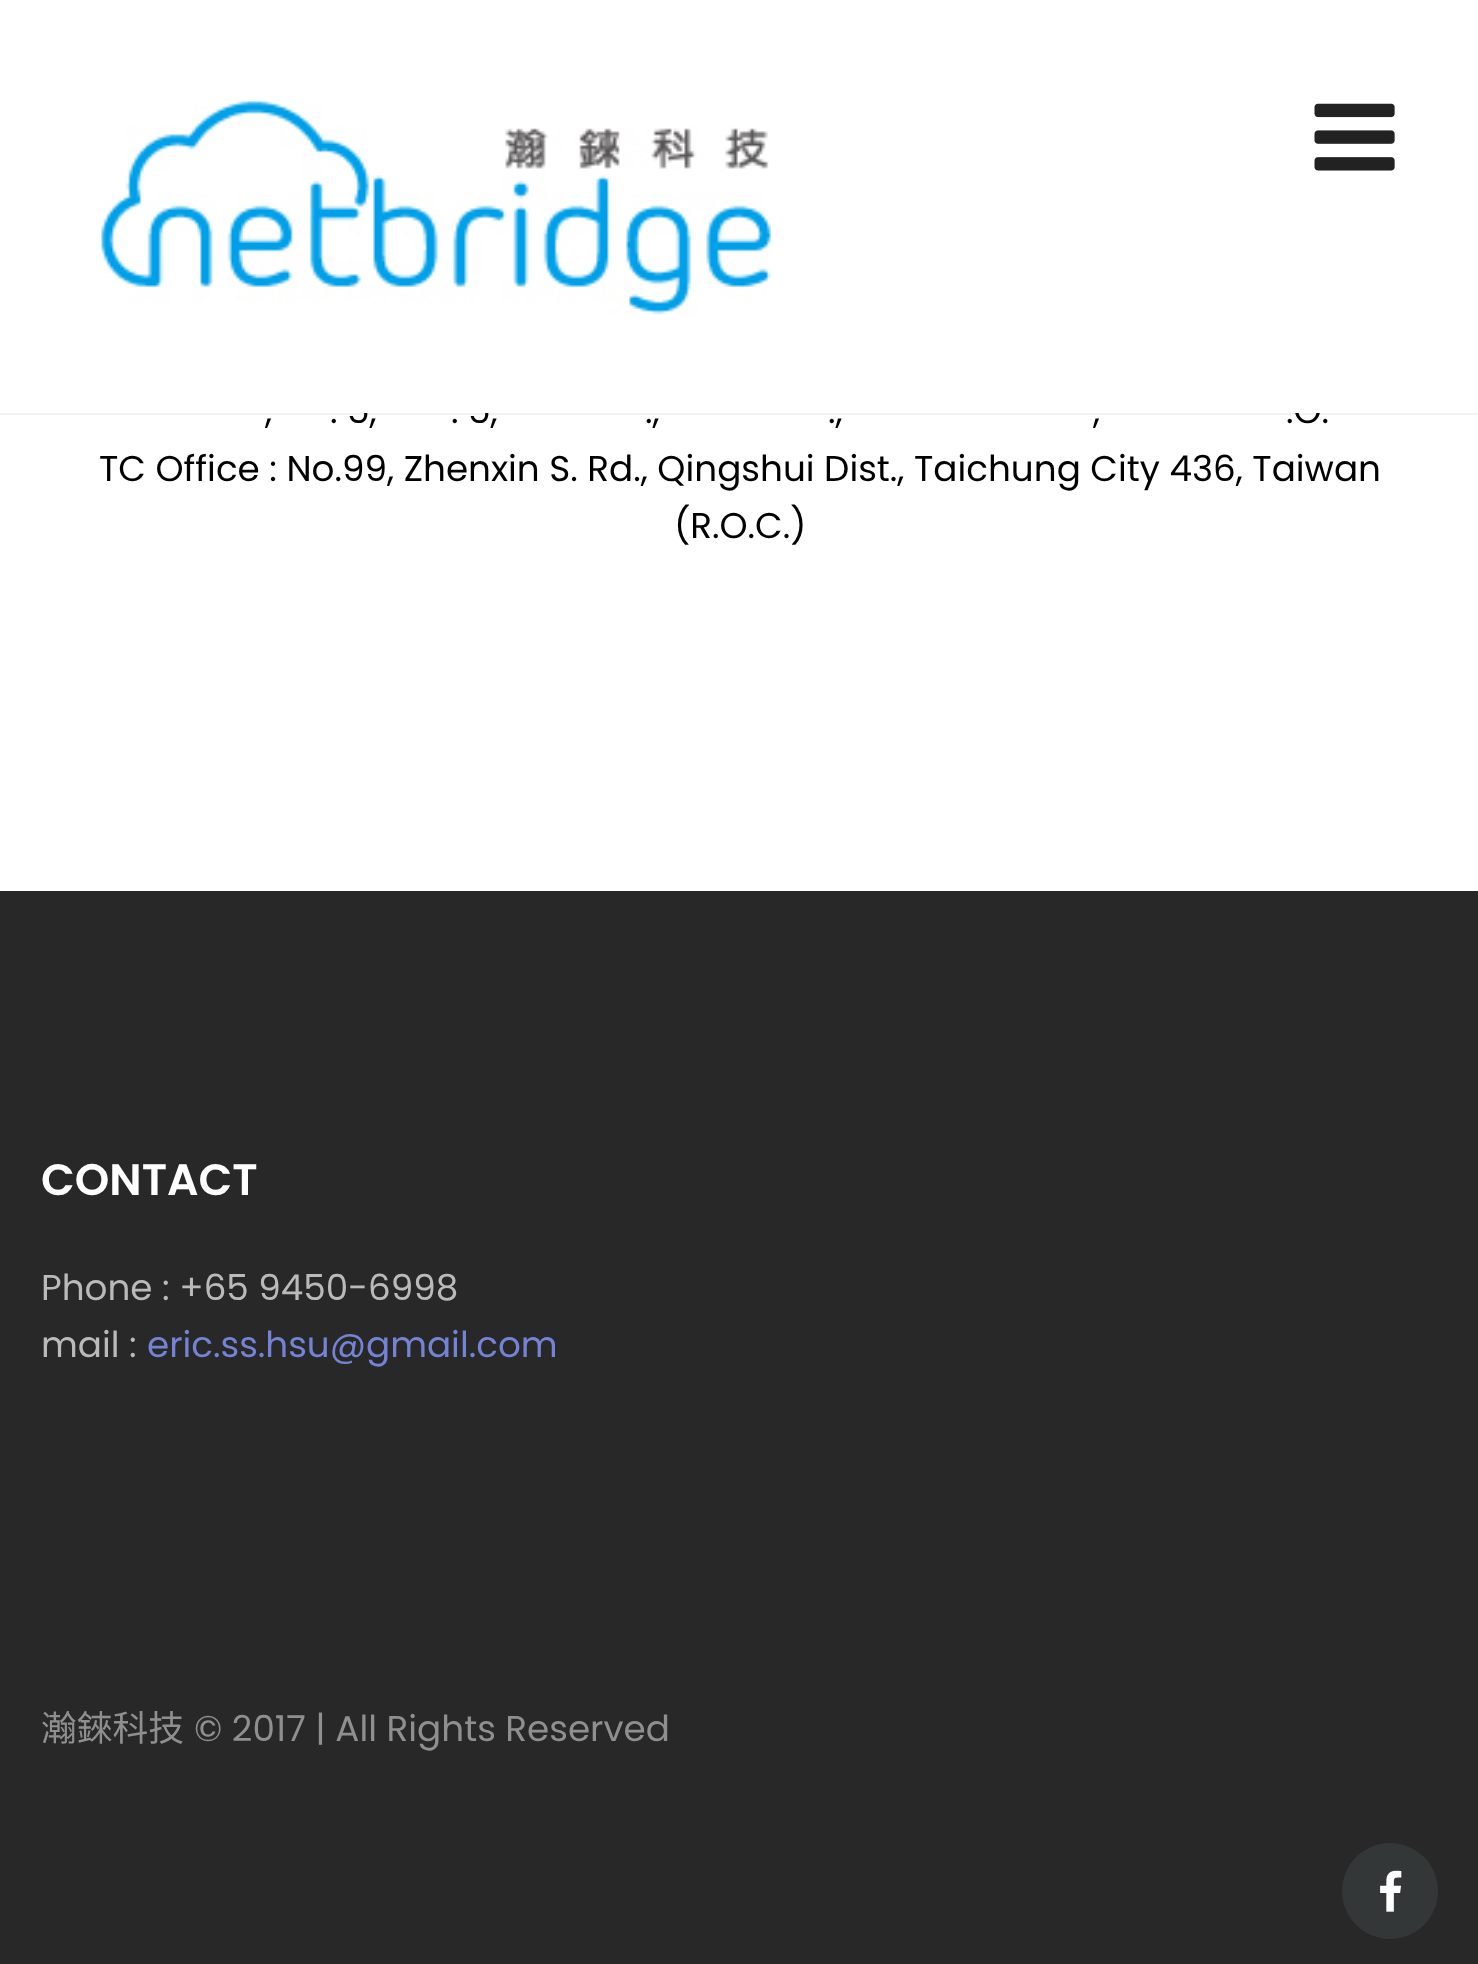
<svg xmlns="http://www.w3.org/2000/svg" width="1478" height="1964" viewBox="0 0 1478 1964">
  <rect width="100%" height="100%" fill="#ffffff"/>
  <path d="M0 412V415H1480V3V412Z" fill="#000000" fill-opacity="0.05"/>
  <text x="330" y="423" font-family="Poppins" font-size="35.75" fill="#000000">. 5,</text>
  <text x="451" y="423" font-family="Poppins" font-size="35.75" fill="#000000">. 5,</text>
  <text x="1286" y="423" font-family="Poppins" font-size="35.75" fill="#000000">.O.</text>
  <rect x="0" y="397" width="1478" height="16" fill="#ffffff"/>
  <image x="101" y="101" width="670" height="214" href="img1.png"/>
  <image x="1314" y="103" width="81" height="68" href="img2.png"/>
  <text x="265" y="423" font-family="Poppins" font-size="35.75" fill="#000000">,</text>
  <text x="645" y="423" font-family="Poppins" font-size="35.75" fill="#000000">.,</text>
  <text x="828" y="423" font-family="Poppins" font-size="35.75" fill="#000000">.,</text>
  <text x="1093" y="423" font-family="Poppins" font-size="35.75" fill="#000000">,</text>
  <text x="99" y="481" font-family="Poppins" font-size="35.75" fill="#000000">TC Office : No.99, Zhenxin S. Rd., Qingshui Dist., Taichung City 436, Taiwan</text>
  <text x="674" y="538" font-family="Poppins" font-size="35.75" fill="#000000">(R.O.C.)</text>
  <rect x="0" y="891" width="1478" height="1073" fill="#282828"/>
  <text x="41" y="1195" font-family="Poppins" font-size="44" font-weight="600" fill="#ffffff">CONTACT</text>
  <text x="41" y="1300" font-family="Poppins" font-size="35.75" fill="#bababa">Phone : +65 9450-6998</text>
  <text x="41" y="1357" font-family="Poppins" font-size="35.75" fill="#bababa">mail :</text>
  <text x="147" y="1357" font-family="Poppins" font-size="35.75" fill="#7483d4">eric.ss.hsu@gmail.com</text>
  <text x="41" y="1741" font-family="Noto Sans CJK TC" font-size="35.75" fill="#8f8f8f">瀚錸科技</text>
  <text x="194" y="1741" font-family="Poppins" font-size="35.75" fill="#8f8f8f">© 2017 | All Rights Reserved</text>
  <circle cx="1390" cy="1891" r="48" fill="#343738"/>
  <image x="1380" y="1870" width="22" height="42" href="img3.png"/>
</svg>
